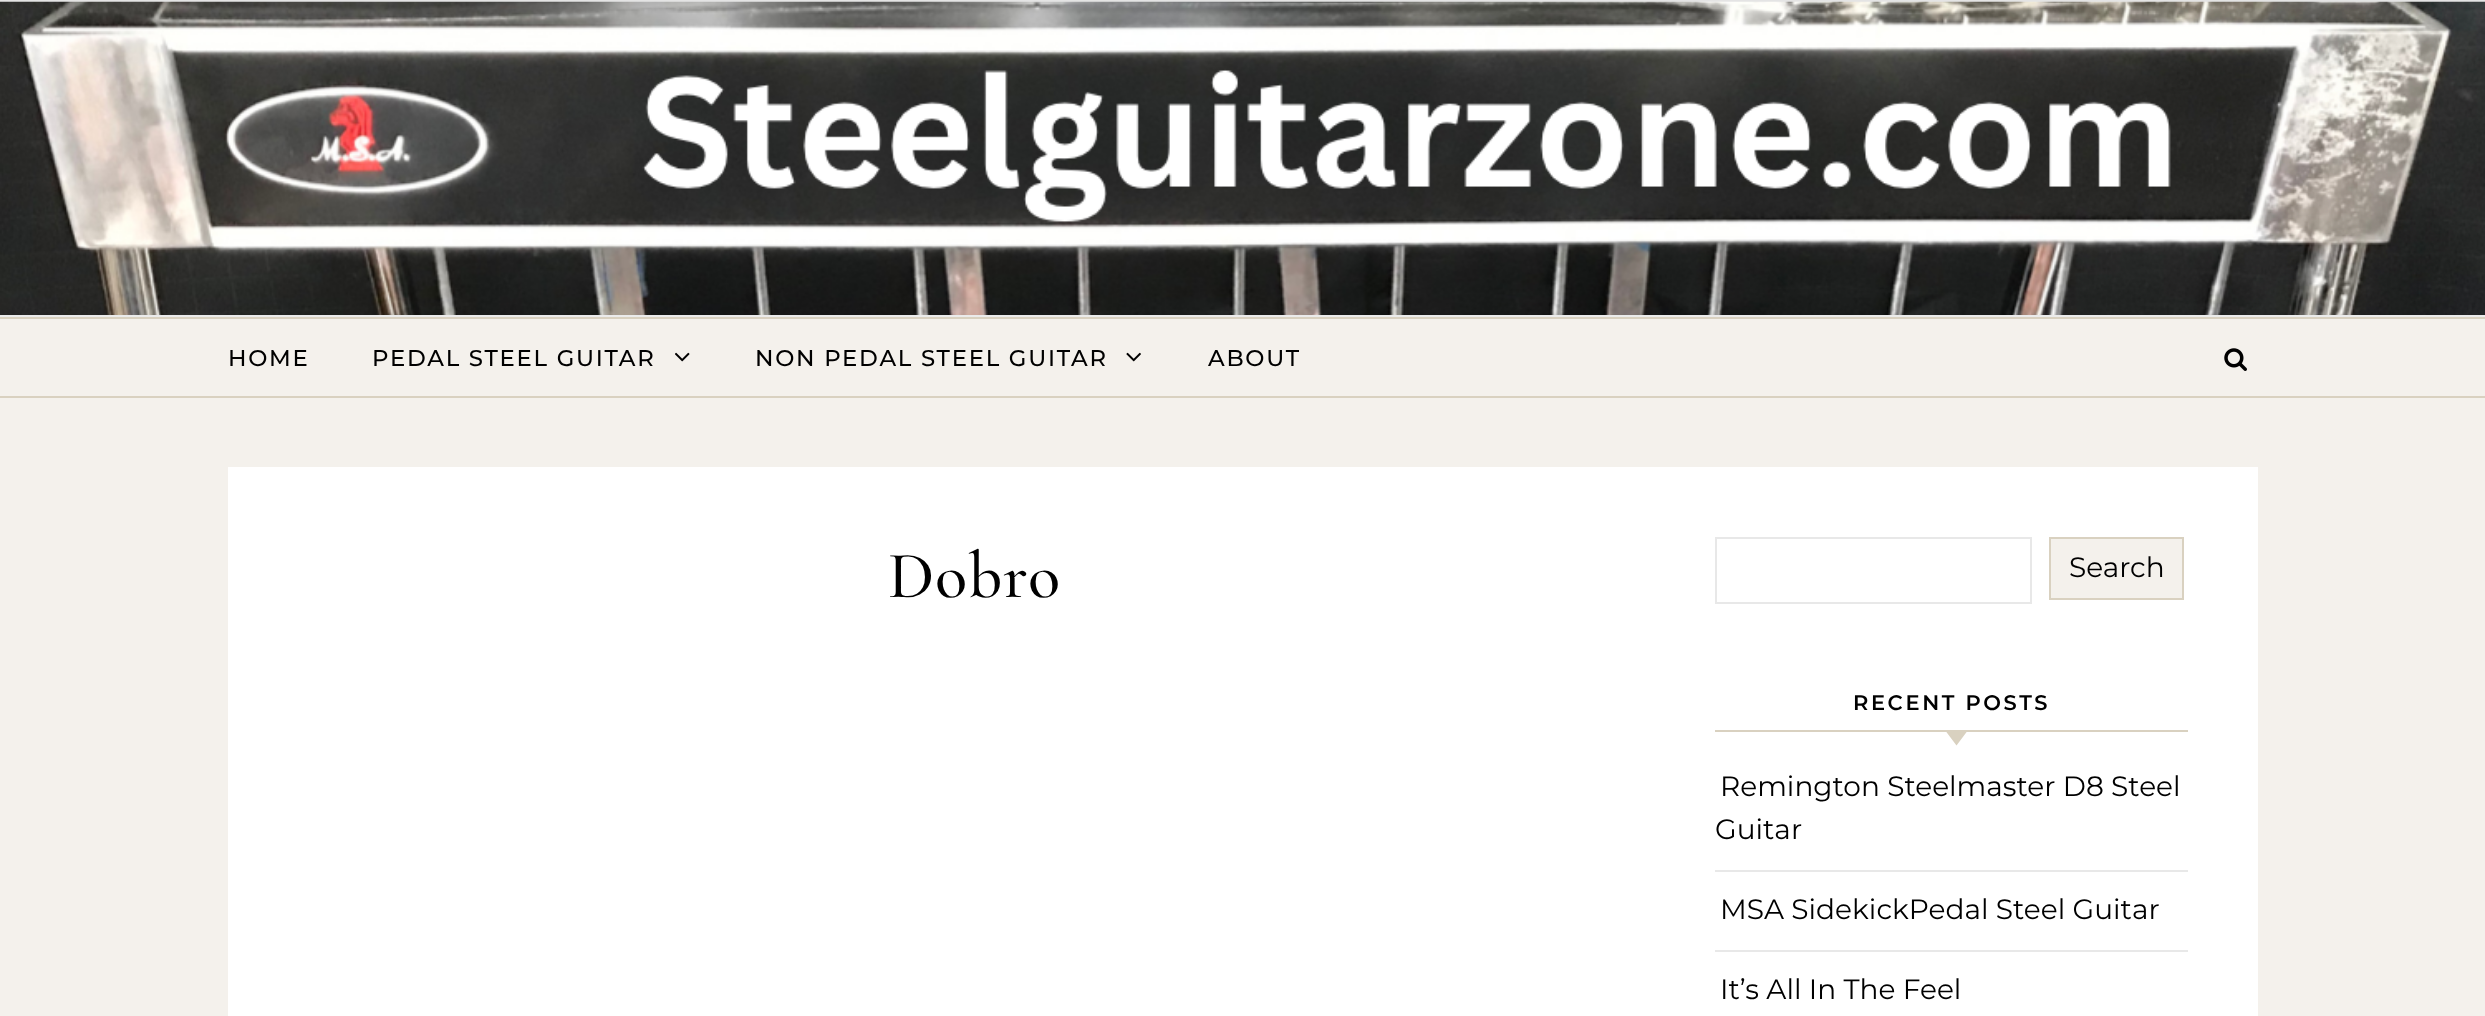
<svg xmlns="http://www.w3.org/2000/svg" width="2485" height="1016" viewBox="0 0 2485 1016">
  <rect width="100%" height="100%" fill="#f4f1ec"/>
  <rect x="0" y="0" width="2485" height="2" fill="#e4e4e4"/>
  <image x="0" y="1" width="2485" height="314" href="img1.png"/>
  <rect x="0" y="315" width="2485" height="2" fill="#ebebeb"/>
  <rect x="0" y="317" width="2485" height="2" fill="#d9d1c0"/>
  <rect x="0" y="396" width="2485" height="2" fill="#d9d1c0"/>
  <text x="228" y="366" font-family="'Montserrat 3'" font-size="22.75" font-weight="100" letter-spacing="1.75" fill="#000000">HOME</text>
  <text x="372" y="366" font-family="'Montserrat 3'" font-size="22.75" font-weight="100" letter-spacing="1.75" fill="#000000">PEDAL STEEL GUITAR</text>
  <image x="675" y="352" width="15" height="10" href="img2.png"/>
  <text x="755" y="366" font-family="'Montserrat 3'" font-size="22.75" font-weight="100" letter-spacing="1.75" fill="#000000">NON PEDAL STEEL GUITAR</text>
  <image x="1126" y="352" width="15" height="10" href="img3.png"/>
  <text x="1208" y="366" font-family="'Montserrat 3'" font-size="22.75" font-weight="100" letter-spacing="1.75" fill="#000000">ABOUT</text>
  <image x="2224" y="348" width="23" height="23" href="img4.png"/>
  <rect x="228" y="467" width="2030" height="549" fill="#ffffff"/>
  <text x="888" y="597" font-family="Cormorant Garamond" font-size="66.5" font-weight="500" letter-spacing="1" fill="#000000">Dobro</text>
  <rect x="1716" y="538" width="315" height="65" fill="none" stroke="#e8e8e8" stroke-width="2"/>
  <rect x="2050" y="538" width="133" height="61" fill="#f4f1ec" stroke="#d9d1c0" stroke-width="2"/>
  <text x="2069" y="577" font-family="Montserrat" font-size="28" font-weight="100" fill="#000000">Search</text>
  <rect x="1715" y="730" width="473" height="2" fill="#d9d1c0"/>
  <text x="1853" y="710" font-family="'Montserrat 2'" font-size="21" font-weight="100" letter-spacing="2.6" fill="#000000">RECENT POSTS</text>
  <path d="M1946 731.5H1967L1956.5 745.5Z" fill="#d9d1c0"/>
  <rect x="1715" y="870" width="473" height="2" fill="#e8e8e8"/>
  <text x="1720" y="796" font-family="Montserrat" font-size="28" font-weight="100" fill="#000000">Remington Steelmaster D8 Steel</text>
  <text x="1715" y="839" font-family="Montserrat" font-size="28" font-weight="100" fill="#000000">Guitar</text>
  <rect x="1715" y="950" width="473" height="2" fill="#e8e8e8"/>
  <text x="1720" y="919" font-family="Montserrat" font-size="28" font-weight="100" fill="#000000">MSA SidekickPedal Steel Guitar</text>
  <text x="1720" y="999" font-family="Montserrat" font-size="28" font-weight="100" fill="#000000">It’s All In The Feel</text>
</svg>
